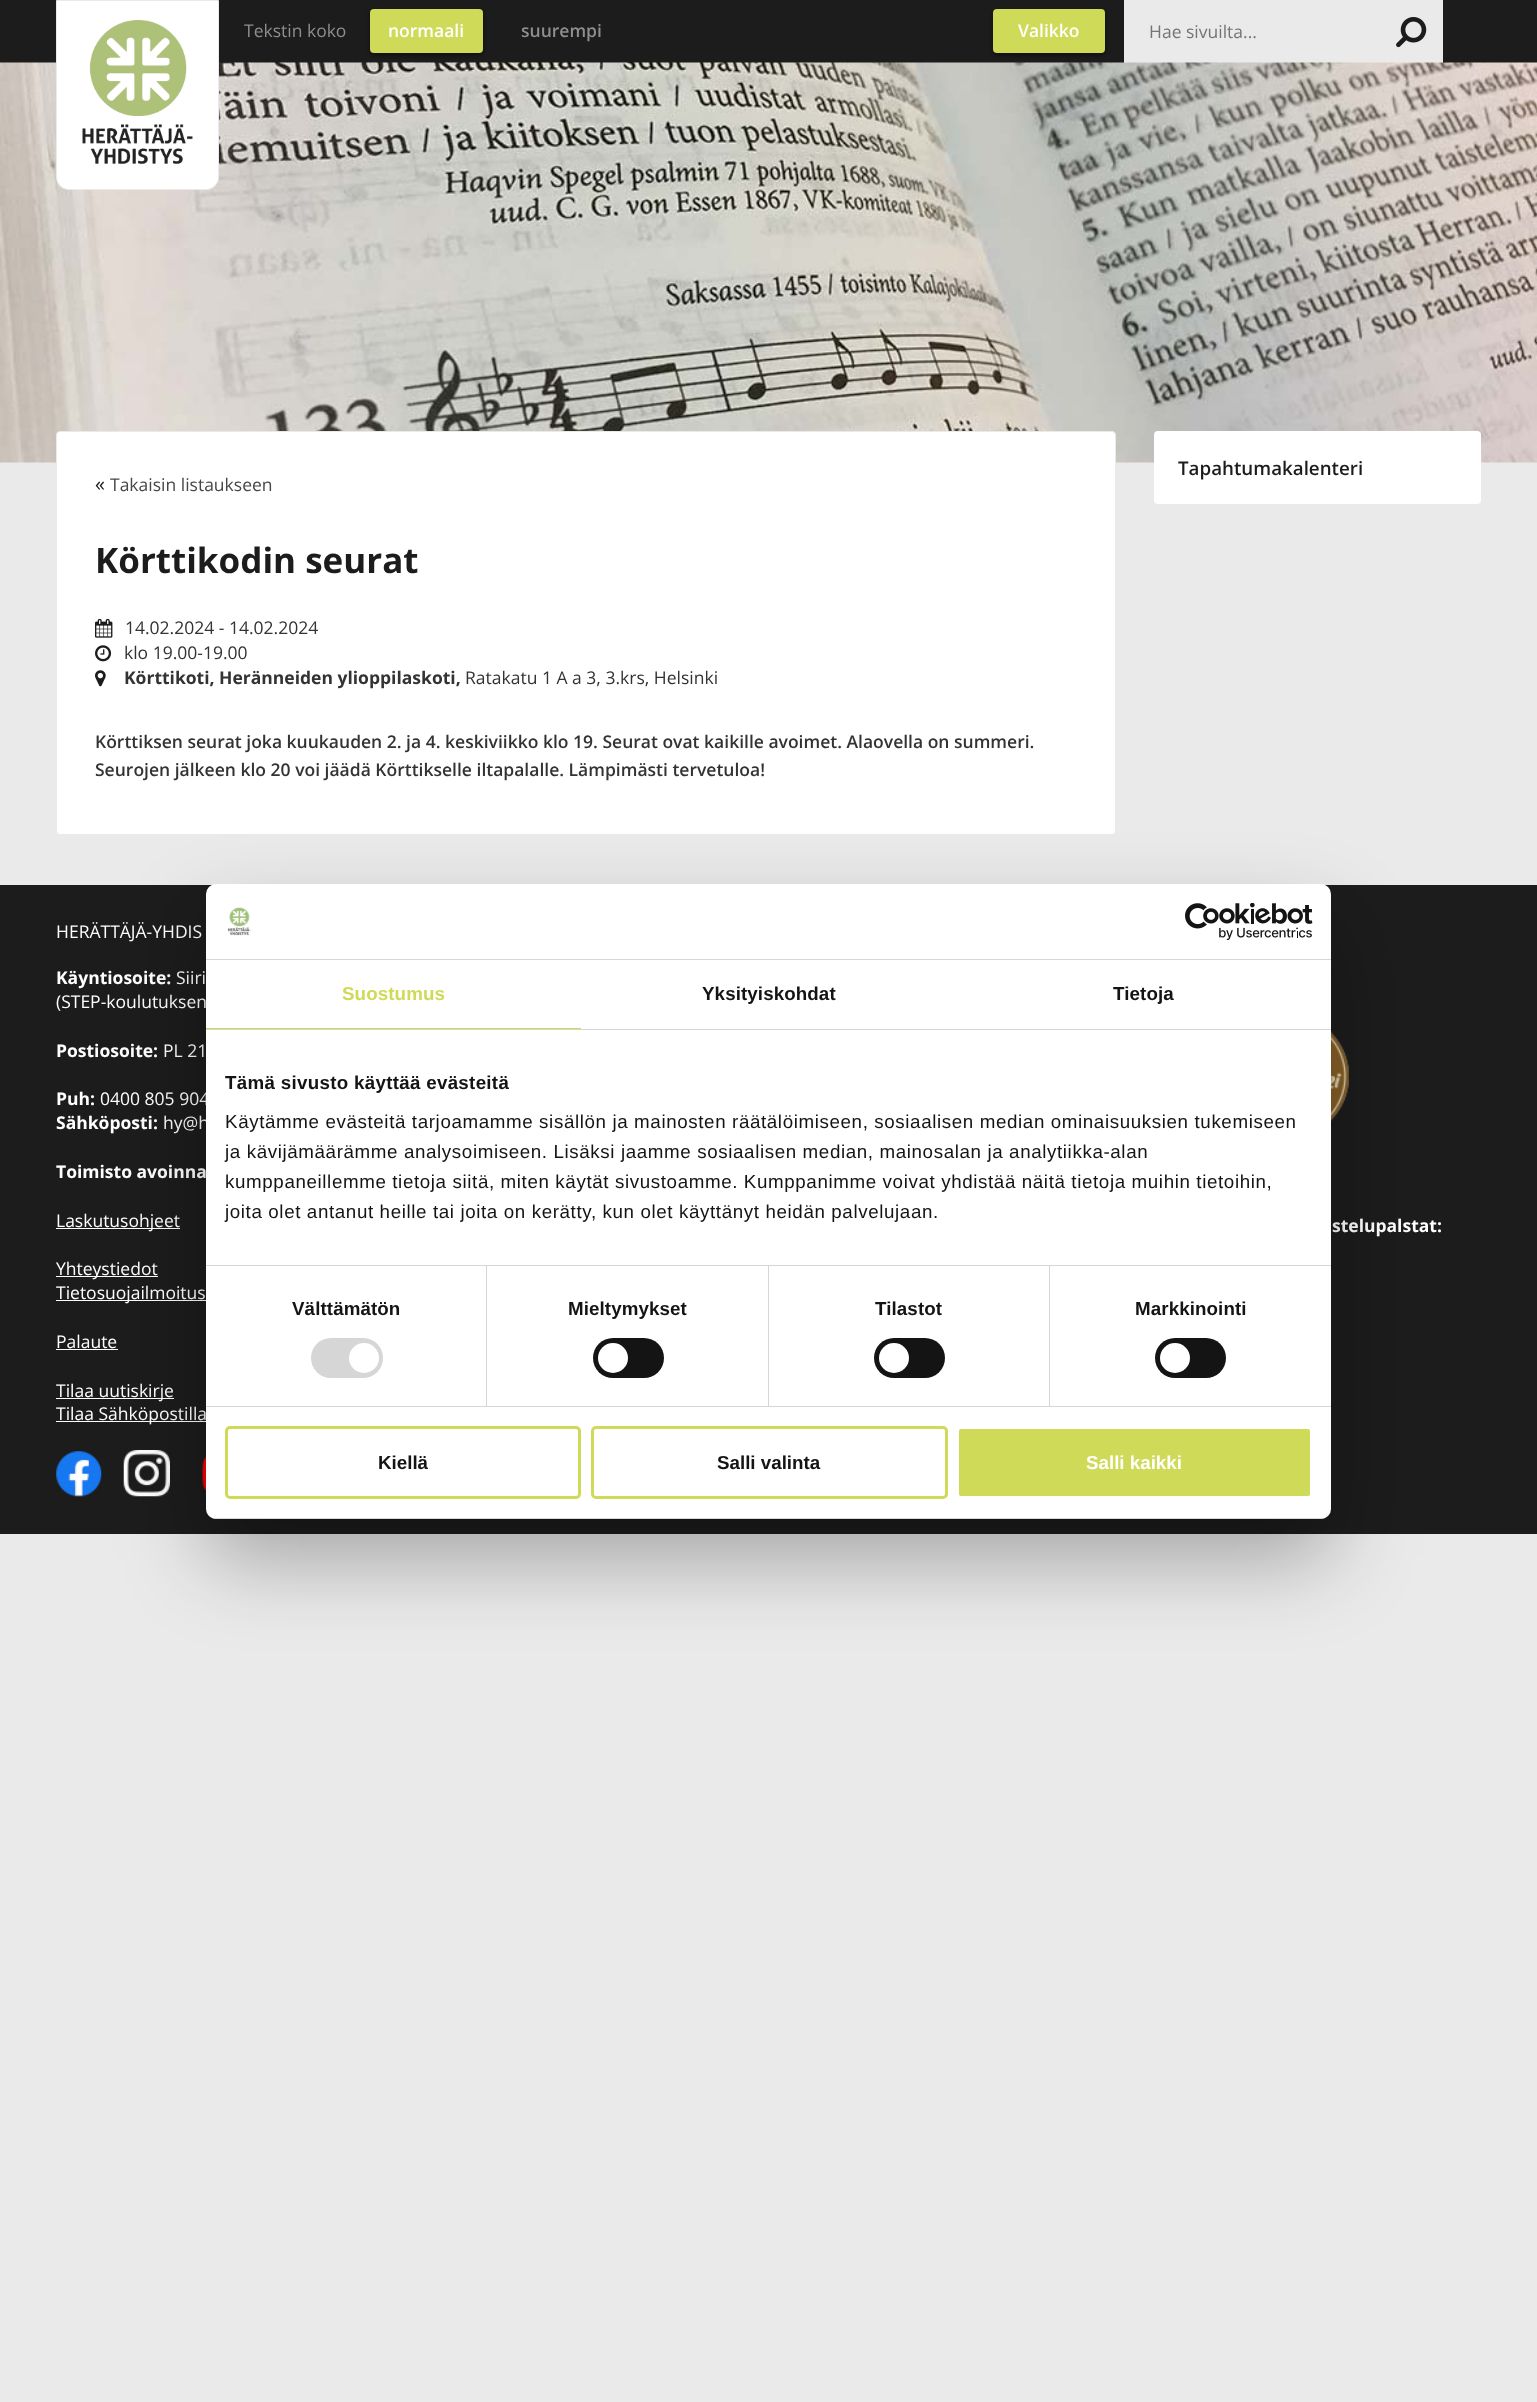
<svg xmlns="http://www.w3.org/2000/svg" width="1537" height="2402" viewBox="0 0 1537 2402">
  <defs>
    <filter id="blur1" x="-50%" y="-200%" width="200%" height="500%"><feGaussianBlur stdDeviation="2.5"/></filter>
    <filter id="blur2" x="-50%" y="-200%" width="200%" height="500%"><feGaussianBlur stdDeviation="42.5"/></filter>
    <clipPath id="clip1"><rect x="206" y="884" width="1125" height="635" rx="10"/></clipPath>
  </defs>
  <rect width="100%" height="100%" fill="#ebeaea"/>
  <rect x="0" y="0" width="1537" height="63" fill="#1c1c1c"/>
  <rect x="370" y="11" width="113" height="44" rx="4" fill="#000000" fill-opacity="0.5" filter="url(#blur1)"/>
  <rect x="993" y="11" width="112" height="44" rx="4" fill="#000000" fill-opacity="0.5" filter="url(#blur1)"/>
  <rect x="1124" y="0" width="319" height="63" fill="#ebeaea"/>
  <image x="0" y="62" width="1537" height="401" href="img3.png"/>
  <path d="M56.5 .5H218.5V177C218.5 184 213 189.5 206 189.5H69C62 189.5 56.5 184 56.5 177Z" fill="#ffffff" stroke="#ebeaea"/>
  <image x="82" y="20" width="111" height="144" href="img1.png"/>
  <text x="244" y="37" font-family="Open Sans" font-size="17.5" fill="#8e8e8e">Tekstin koko</text>
  <rect x="370" y="9" width="113" height="44" rx="4" fill="#cfda58"/>
  <text x="388" y="37" font-family="Open Sans" font-size="17.5" font-weight="600" fill="#ffffff">normaali</text>
  <text x="521" y="37" font-family="Open Sans" font-size="17.5" font-weight="600" fill="#8e8e8e">suurempi</text>
  <rect x="993" y="9" width="112" height="44" rx="4" fill="#cfda58"/>
  <text x="1018" y="37" font-family="Open Sans" font-size="17.5" font-weight="600" fill="#ffffff">Valikko</text>
  <text x="1149" y="38" font-family="Open Sans" font-size="17.5" fill="#757575">Hae sivuilta...</text>
  <image x="1396" y="17" width="31" height="31" href="img2.png"/>
  <rect x="1154" y="431" width="327" height="73" rx="4" fill="#ffffff"/>
  <text x="1178" y="475" font-family="Open Sans" font-size="18.75" font-weight="600" fill="#1c1c1c">Tapahtumakalenteri</text>
  <rect x="56.5" y="431.5" width="1059" height="403" rx="3.5" fill="#ffffff" stroke="#ebeaea"/>
  <text x="95" y="491" font-family="Open Sans" font-size="20" fill="#1c1c1c">«</text>
  <text x="110" y="491" font-family="Open Sans" font-size="17.5" fill="#474748">Takaisin listaukseen</text>
  <text x="95" y="573" font-family="Open Sans" font-size="35" font-weight="bold" fill="#1c1c1c">Körttikodin seurat</text>
  <image x="95" y="618" width="18" height="20" href="img4.png"/>
  <text x="125" y="634" font-family="Open Sans" font-size="17.5" fill="#333333">14.02.2024 - 14.02.2024</text>
  <image x="95" y="645" width="17" height="17" href="img5.png"/>
  <text x="124" y="659" font-family="Open Sans" font-size="17.5" fill="#333333">klo 19.00-19.00</text>
  <image x="95" y="670" width="11" height="17" href="img6.png"/>
  <text x="124" y="684" font-family="Open Sans" font-size="17.5" font-weight="bold" fill="#333333">Körttikoti, Heränneiden ylioppilaskoti,</text>
  <text x="465" y="684" font-family="Open Sans" font-size="17.5" fill="#333333">Ratakatu 1 A a 3, 3.krs, Helsinki</text>
  <text x="95" y="748" font-family="Open Sans" font-size="17.5" font-weight="600" fill="#333333">Körttiksen seurat joka kuukauden 2. ja 4. keskiviikko klo 19. Seurat ovat kaikille avoimet. Alaovella on summeri.</text>
  <text x="95" y="776" font-family="Open Sans" font-size="17.5" font-weight="600" fill="#333333">Seurojen jälkeen klo 20 voi jäädä Körttikselle iltapalalle. Lämpimästi tervetuloa!</text>
  <rect x="0" y="885" width="1537" height="649" fill="#1c1c1c"/>
  <text x="56" y="938" font-family="Open Sans" font-size="17.5" fill="#ffffff">HERÄTTÄJÄ-YHDIS</text>
  <text x="56" y="984" font-family="Open Sans" font-size="17.5" font-weight="bold" fill="#ffffff">Käyntiosoite:</text>
  <text x="176" y="984" font-family="Open Sans" font-size="17.5" fill="#ffffff">Siiri</text>
  <text x="56" y="1008" font-family="Open Sans" font-size="17.5" fill="#ffffff">(STEP-koulutuksen</text>
  <text x="56" y="1057" font-family="Open Sans" font-size="17.5" font-weight="bold" fill="#ffffff">Postiosoite:</text>
  <text x="163" y="1057" font-family="Open Sans" font-size="17.5" fill="#ffffff">PL 21</text>
  <text x="56" y="1105" font-family="Open Sans" font-size="17.5" font-weight="bold" fill="#ffffff">Puh:</text>
  <text x="100" y="1105" font-family="Open Sans" font-size="17.5" fill="#ffffff">0400 805 904</text>
  <text x="56" y="1129" font-family="Open Sans" font-size="17.5" font-weight="bold" fill="#ffffff">Sähköposti:</text>
  <text x="163" y="1129" font-family="Open Sans" font-size="17.5" fill="#ffffff">hy@h</text>
  <text x="56" y="1178" font-family="Open Sans" font-size="17.5" font-weight="bold" fill="#ffffff">Toimisto avoinna</text>
  <rect x="56" y="1228" width="124" height="1" fill="#ffffff"/>
  <text x="56" y="1227" font-family="Open Sans" font-size="17.5" fill="#ffffff">Laskutusohjeet</text>
  <rect x="56" y="1276" width="102" height="1" fill="#ffffff"/>
  <text x="56" y="1275" font-family="Open Sans" font-size="17.5" fill="#ffffff">Yhteystiedot</text>
  <rect x="56" y="1300" width="150" height="1" fill="#ffffff"/>
  <text x="56" y="1299" font-family="Open Sans" font-size="17.5" fill="#ffffff">Tietosuojailmoitus</text>
  <text x="56" y="1348" font-family="Open Sans" font-size="17.5" fill="#ffffff">Palaute</text>
  <rect x="56" y="1349" width="62" height="1" fill="#ffffff"/>
  <rect x="56" y="1398" width="118" height="1" fill="#ffffff"/>
  <text x="56" y="1397" font-family="Open Sans" font-size="17.5" fill="#ffffff">Tilaa uutiskirje</text>
  <rect x="56" y="1421" width="152" height="1" fill="#ffffff"/>
  <text x="56" y="1420" font-family="Open Sans" font-size="17.5" fill="#ffffff">Tilaa Sähköpostilla</text>
  <image x="56" y="1451" width="46" height="46" href="img7.png"/>
  <image x="123" y="1450" width="47" height="47" href="img8.png"/>
  <image x="202" y="1456" width="4" height="35" href="img9.png"/>
  <image x="1331" y="1031" width="18" height="91" href="img10.png"/>
  <text x="1332" y="1232" font-family="Open Sans" font-size="17.5" font-weight="bold" fill="#ffffff">stelupalstat:</text>
  <rect x="206" y="924" width="1125" height="635" rx="10" fill="#000000" fill-opacity="0.3" filter="url(#blur2)"/>
  <rect x="206" y="884" width="1125" height="635" rx="10" fill="#ffffff"/>
  <rect x="206" y="959" width="1125" height="1" fill="#d6d6d6"/>
  <image x="227" y="907" width="24" height="29" href="img11.png"/>
  <image x="1185" y="903" width="128" height="37" href="img12.png"/>
  <rect x="206" y="1029" width="1125" height="1" fill="#d6d6d6"/>
  <rect x="206" y="1028" width="375" height="1" fill="#cfda58"/>
  <text x="342" y="1000" font-family="Liberation Sans" font-size="18.75" font-weight="bold" letter-spacing="0.1" fill="#cfda58">Suostumus</text>
  <text x="702" y="1000" font-family="Liberation Sans" font-size="18.75" font-weight="bold" letter-spacing="0.1" fill="#141414">Yksityiskohdat</text>
  <text x="1113" y="1000" font-family="Liberation Sans" font-size="18.75" font-weight="bold" letter-spacing="0.1" fill="#141414">Tietoja</text>
  <rect x="206" y="1265" width="1125" height="1" fill="#d6d6d6"/>
  <text x="225" y="1089" font-family="Liberation Sans" font-size="18.75" font-weight="bold" letter-spacing="0.3" fill="#141414">Tämä sivusto käyttää evästeitä</text>
  <text x="225" y="1128" font-family="Liberation Sans" font-size="18.75" letter-spacing="0.62" fill="#141414">Käytämme evästeitä tarjoamamme sisällön ja mainosten räätälöimiseen, sosiaalisen median ominaisuuksien tukemiseen</text>
  <text x="225" y="1158" font-family="Liberation Sans" font-size="18.75" letter-spacing="0.62" fill="#141414">ja kävijämäärämme analysoimiseen. Lisäksi jaamme sosiaalisen median, mainosalan ja analytiikka-alan</text>
  <text x="225" y="1188" font-family="Liberation Sans" font-size="18.75" letter-spacing="0.62" fill="#141414">kumppaneillemme tietoja siitä, miten käytät sivustoamme. Kumppanimme voivat yhdistää näitä tietoja muihin tietoihin,</text>
  <text x="225" y="1218" font-family="Liberation Sans" font-size="18.75" letter-spacing="0.62" fill="#141414">joita olet antanut heille tai joita on kerätty, kun olet käyttänyt heidän palvelujaan.</text>
  <rect x="206" y="1406" width="1125" height="1" fill="#d6d6d6"/>
  <rect x="486" y="1266" width="1" height="140" fill="#d6d6d6"/>
  <text x="292" y="1315" font-family="Liberation Sans" font-size="18.75" font-weight="bold" letter-spacing="0.1" fill="#141414">Välttämätön</text>
  <rect x="311" y="1338" width="72" height="40" rx="20" fill="#d6d6d6"/>
  <circle cx="364" cy="1358" r="15" fill="#ffffff"/>
  <rect x="768" y="1266" width="1" height="140" fill="#d6d6d6"/>
  <text x="568" y="1315" font-family="Liberation Sans" font-size="18.75" font-weight="bold" letter-spacing="0.1" fill="#141414">Mieltymykset</text>
  <rect x="593" y="1338" width="71" height="40" rx="20" fill="#141414"/>
  <circle cx="613" cy="1358" r="15" fill="#ffffff"/>
  <rect x="1049" y="1266" width="1" height="140" fill="#d6d6d6"/>
  <text x="875" y="1315" font-family="Liberation Sans" font-size="18.75" font-weight="bold" letter-spacing="0.1" fill="#141414">Tilastot</text>
  <rect x="874" y="1338" width="71" height="40" rx="20" fill="#141414"/>
  <circle cx="894" cy="1358" r="15" fill="#ffffff"/>
  <text x="1135" y="1315" font-family="Liberation Sans" font-size="18.75" font-weight="bold" letter-spacing="0.1" fill="#141414">Markkinointi</text>
  <rect x="1155" y="1338" width="71" height="40" rx="20" fill="#141414"/>
  <circle cx="1175" cy="1358" r="15" fill="#ffffff"/>
  <g clip-path="url(#clip1)">
    <rect x="206" y="1518" width="1125" height="1" fill="#d6d6d6"/>
  </g>
  <rect x="226.5" y="1427.5" width="353" height="70" rx="3.5" fill="none" stroke="#cfda58" stroke-width="3"/>
  <text x="378" y="1469" font-family="Liberation Sans" font-size="18.75" font-weight="bold" fill="#141414">Kiellä</text>
  <rect x="592.5" y="1427.5" width="354" height="70" rx="3.5" fill="none" stroke="#cfda58" stroke-width="3"/>
  <text x="717" y="1469" font-family="Liberation Sans" font-size="18.75" font-weight="bold" fill="#141414">Salli valinta</text>
  <rect x="957.5" y="1427.5" width="354" height="70" rx="3.5" fill="#cfda58" stroke="#ffffff" stroke-width="3"/>
  <text x="1086" y="1469" font-family="Liberation Sans" font-size="18.75" font-weight="bold" fill="#ffffff">Salli kaikki</text>
</svg>
